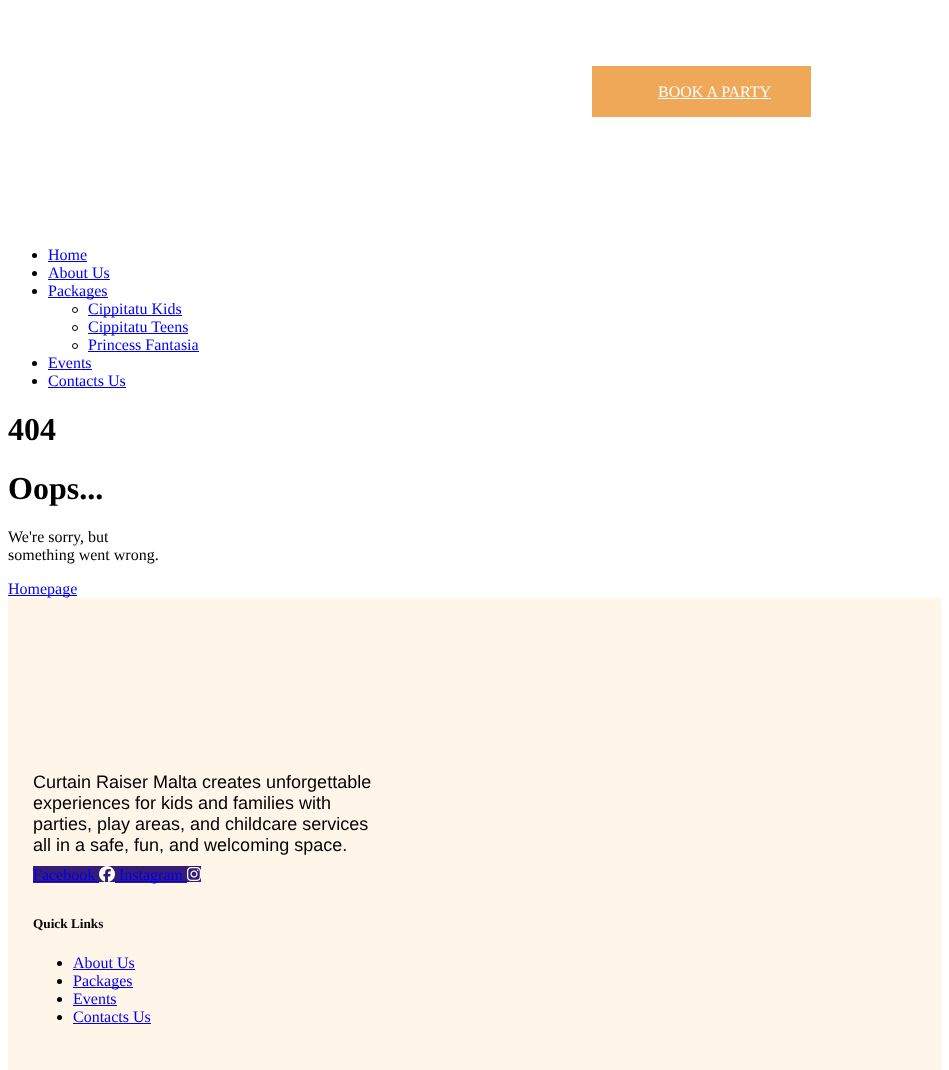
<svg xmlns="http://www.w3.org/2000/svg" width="949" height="1070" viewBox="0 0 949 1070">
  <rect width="100%" height="100%" fill="#ffffff"/>
  <rect x="592" y="66" width="219" height="51" fill="#efa758"/>
  <text x="658" y="97" font-family="Liberation Serif" font-size="16" fill="#ffffff">BOOK A PARTY</text>
  <rect x="658" y="98" width="113" height="1" fill="#ffffff"/>
  <circle cx="34.5" cy="255.5" r="2.5" fill="#000000"/>
  <text x="48" y="260" font-family="Liberation Serif" font-size="16" fill="#0000ee">Home</text>
  <rect x="48" y="261" width="39" height="1" fill="#0000ee"/>
  <circle cx="34.5" cy="273.5" r="2.5" fill="#000000"/>
  <text x="48" y="278" font-family="Liberation Serif" font-size="16" fill="#0000ee">About Us</text>
  <rect x="48" y="279" width="62" height="1" fill="#0000ee"/>
  <circle cx="34.5" cy="291.5" r="2.5" fill="#000000"/>
  <rect x="48" y="297" width="60" height="1" fill="#0000ee"/>
  <text x="48" y="296" font-family="Liberation Serif" font-size="16" fill="#0000ee">Packages</text>
  <circle cx="75" cy="310" r="2.5" fill="none" stroke="#000000"/>
  <rect x="88" y="315" width="94" height="1" fill="#0000ee"/>
  <text x="88" y="314" font-family="Liberation Serif" font-size="16" fill="#0000ee">Cippitatu Kids</text>
  <circle cx="75" cy="328" r="2.5" fill="none" stroke="#000000"/>
  <rect x="88" y="333" width="100" height="1" fill="#0000ee"/>
  <text x="88" y="332" font-family="Liberation Serif" font-size="16" fill="#0000ee">Cippitatu Teens</text>
  <circle cx="75" cy="346" r="2.5" fill="none" stroke="#000000"/>
  <text x="88" y="350" font-family="Liberation Serif" font-size="16" fill="#0000ee">Princess Fantasia</text>
  <rect x="88" y="351" width="111" height="1" fill="#0000ee"/>
  <circle cx="34.5" cy="363.5" r="2.5" fill="#000000"/>
  <text x="48" y="368" font-family="Liberation Serif" font-size="16" fill="#0000ee">Events</text>
  <rect x="48" y="369" width="44" height="1" fill="#0000ee"/>
  <circle cx="34.5" cy="381.5" r="2.5" fill="#000000"/>
  <text x="48" y="386" font-family="Liberation Serif" font-size="16" fill="#0000ee">Contacts Us</text>
  <rect x="48" y="387" width="78" height="1" fill="#0000ee"/>
  <text x="8" y="440" font-family="Liberation Serif" font-size="32" font-weight="bold" fill="#000000">404</text>
  <text x="8" y="499" font-family="Liberation Serif" font-size="32" font-weight="bold" fill="#000000">Oops...</text>
  <text x="8" y="542" font-family="Liberation Serif" font-size="16" fill="#000000">We're sorry, but</text>
  <text x="8" y="560" font-family="Liberation Serif" font-size="16" fill="#000000">something went wrong.</text>
  <rect x="8" y="595" width="69" height="1" fill="#0000ee"/>
  <text x="8" y="594" font-family="Liberation Serif" font-size="16" fill="#0000ee">Homepage</text>
  <rect x="8" y="598" width="933" height="472" fill="#fff6e9"/>
  <text x="33" y="788" font-family="Liberation Sans" font-size="18" fill="#000000">Curtain Raiser Malta creates unforgettable</text>
  <text x="33" y="809" font-family="Liberation Sans" font-size="18" fill="#000000">experiences for kids and families with</text>
  <text x="33" y="830" font-family="Liberation Sans" font-size="18" fill="#000000">parties, play areas, and childcare services</text>
  <text x="33" y="851" font-family="Liberation Sans" font-size="18" fill="#000000">all in a safe, fun, and welcoming space.</text>
  <rect x="33" y="866" width="66" height="17" fill="#341c77"/>
  <rect x="99" y="866" width="16" height="16" fill="#341c77"/>
  <rect x="115" y="866" width="72" height="17" fill="#341c77"/>
  <text x="33" y="880" font-family="Liberation Serif" font-size="16" fill="#0000ee">Facebook</text>
  <rect x="33" y="881" width="66" height="1" fill="#0000ee"/>
  <image x="99" y="866" width="16" height="16" href="img1.png"/>
  <rect x="115" y="881" width="72" height="1" fill="#0000ee"/>
  <rect x="187" y="866" width="14" height="16" fill="#341c77"/>
  <text x="119" y="880" font-family="Liberation Serif" font-size="16" fill="#0000ee">Instagram</text>
  <image x="187" y="867" width="14" height="14" href="img2.png"/>
  <text x="33" y="928" font-family="Liberation Serif" font-size="13.25" font-weight="bold" fill="#000000">Quick Links</text>
  <circle cx="59.5" cy="963.5" r="2.5" fill="#000000"/>
  <text x="73" y="968" font-family="Liberation Serif" font-size="16" fill="#0000ee">About Us</text>
  <rect x="73" y="969" width="62" height="1" fill="#0000ee"/>
  <circle cx="59.5" cy="981.5" r="2.5" fill="#000000"/>
  <rect x="73" y="987" width="60" height="1" fill="#0000ee"/>
  <text x="73" y="986" font-family="Liberation Serif" font-size="16" fill="#0000ee">Packages</text>
  <circle cx="59.5" cy="999.5" r="2.5" fill="#000000"/>
  <text x="73" y="1004" font-family="Liberation Serif" font-size="16" fill="#0000ee">Events</text>
  <rect x="73" y="1005" width="44" height="1" fill="#0000ee"/>
  <circle cx="59.5" cy="1017.5" r="2.5" fill="#000000"/>
  <text x="73" y="1022" font-family="Liberation Serif" font-size="16" fill="#0000ee">Contacts Us</text>
  <rect x="73" y="1023" width="78" height="1" fill="#0000ee"/>
</svg>
